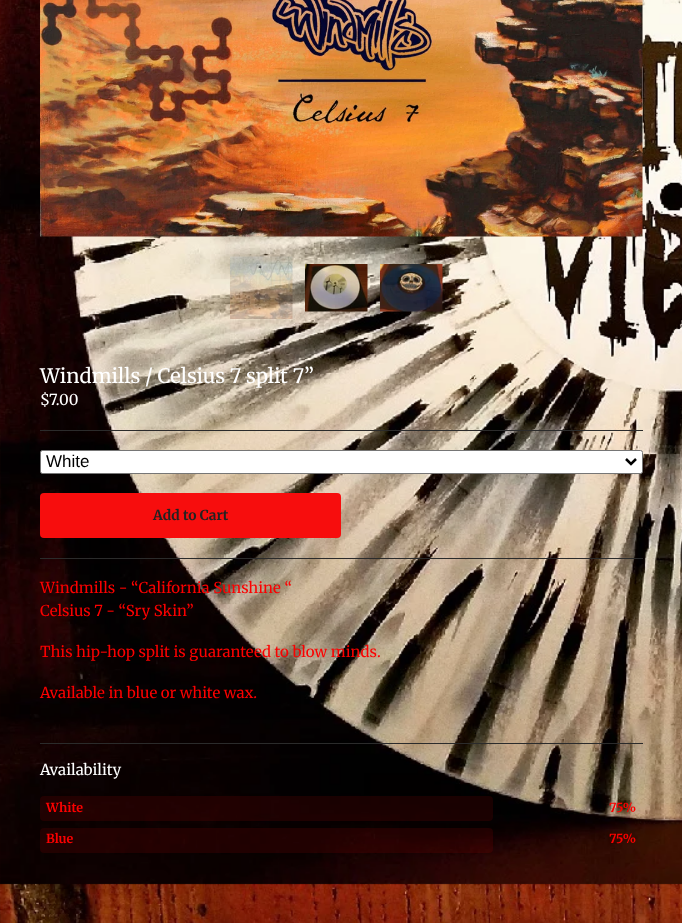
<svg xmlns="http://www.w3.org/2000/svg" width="682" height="923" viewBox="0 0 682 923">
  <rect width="100%" height="100%" fill="#ffffff"/>
  <image x="0" y="0" width="682" height="923" href="img1.png"/>
  <image x="40" y="0" width="603" height="237" href="img2.png"/>
  <image x="230" y="256" width="63" height="63" href="img3.png"/>
  <image x="305" y="264" width="63" height="48" href="img4.png"/>
  <image x="380" y="264" width="63" height="48" href="img5.png"/>
  <text x="40" y="383" font-family="Merriweather" font-size="20" fill="#ffffff">Windmills / Celsius 7 split 7”</text>
  <text x="40" y="405" font-family="Merriweather" font-size="15" fill="#ffffff">$</text>
  <text x="49" y="405" font-family="Merriweather" font-size="15" fill="#ffffff">7.00</text>
  <rect x="40" y="430" width="603" height="1" fill="#2b2b2b"/>
  <rect x="40.5" y="450.5" width="602" height="23" rx="2" fill="#ffffff" stroke="#767676"/>
  <path d="M626 459L631 464L636 459" fill="none" stroke="#000000" stroke-width="2.5"/>
  <text x="46" y="467" font-family="Liberation Sans" font-size="17" fill="#000000">White</text>
  <rect x="40" y="493" width="301" height="45" rx="4" fill="#f70d0d"/>
  <text x="153" y="520" font-family="Merriweather" font-size="13.75" font-weight="bold" fill="#222222">Add to Cart</text>
  <rect x="40" y="558" width="603" height="1" fill="#2b2b2b"/>
  <text x="40" y="593" font-family="Merriweather" font-size="15" fill="#fc0000">Windmills - “California Sunshine “</text>
  <text x="40" y="616" font-family="Merriweather" font-size="15" fill="#fc0000">Celsius 7 - “Sry Skin”</text>
  <text x="40" y="657" font-family="Merriweather" font-size="15" fill="#fc0000">This hip-hop split is guaranteed to blow minds.</text>
  <text x="40" y="698" font-family="Merriweather" font-size="15" fill="#fc0000">Available in blue or white wax.</text>
  <rect x="40" y="743" width="603" height="1" fill="#2b2b2b"/>
  <text x="40" y="775" font-family="Merriweather" font-size="15" fill="#ffffff">Availability</text>
  <rect x="40" y="796" width="453" height="25" rx="4" fill="#f70d0d" fill-opacity="0.1"/>
  <text x="46" y="812" font-family="Merriweather" font-size="12.5" font-weight="bold" fill="#fc0000">White</text>
  <text x="609" y="812" font-family="Merriweather" font-size="12.5" font-weight="bold" fill="#fc0000">75%</text>
  <rect x="40" y="828" width="453" height="25" rx="4" fill="#f70d0d" fill-opacity="0.1"/>
  <text x="46" y="843" font-family="Merriweather" font-size="12.5" font-weight="bold" fill="#fc0000">Blue</text>
  <text x="609" y="843" font-family="Merriweather" font-size="12.5" font-weight="bold" fill="#fc0000">75%</text>
</svg>
